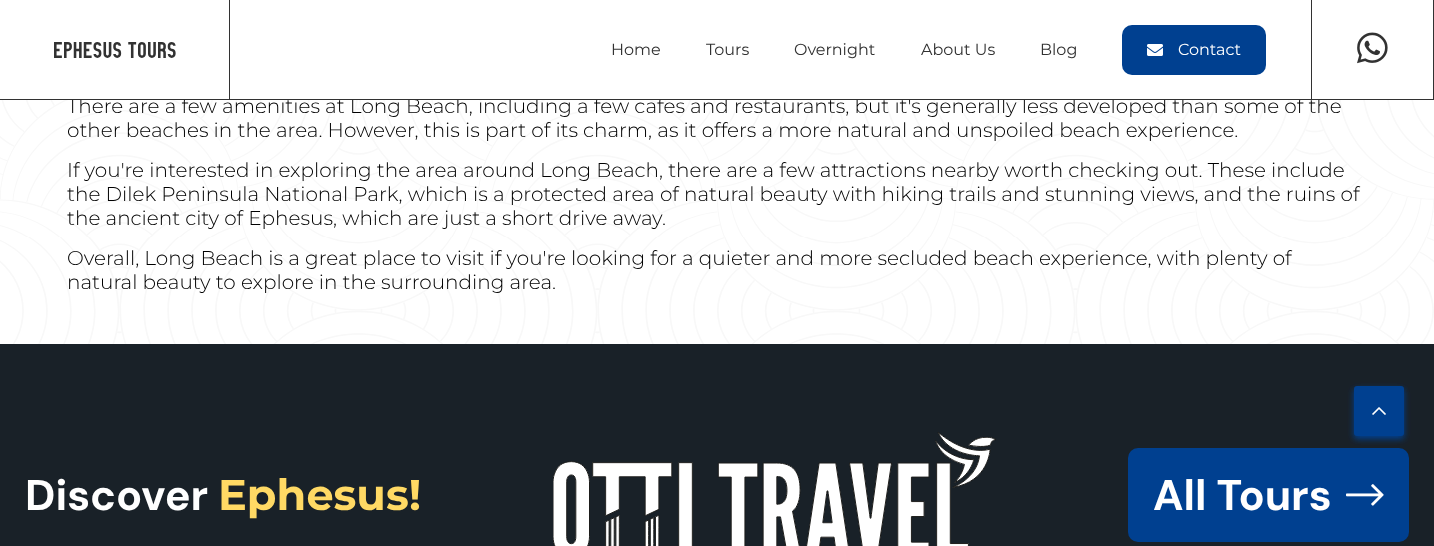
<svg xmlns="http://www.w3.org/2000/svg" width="1434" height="546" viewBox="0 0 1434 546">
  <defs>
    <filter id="blur1" x="-50%" y="-200%" width="200%" height="500%"><feGaussianBlur stdDeviation="3"/></filter>
  </defs>
  <rect width="100%" height="100%" fill="#ffffff"/>
  <image x="0" y="100" width="1434" height="244" href="img1.png"/>
  <text x="67" y="113" font-family="Montserrat" font-size="20" font-weight="300" fill="#000000">There are a few amenities at Long Beach, including a few cafes and restaurants, but it's generally less developed than some of the</text>
  <rect x="80" y="98" width="1240" height="1" fill="#ffffff"/>
  <rect x="0" y="99" width="1434" height="1" fill="#323232"/>
  <rect x="229" y="0" width="1" height="99" fill="#323232"/>
  <text x="53" y="58" font-family="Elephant" font-size="23" fill="#323232">Ephesus Tours</text>
  <rect x="1311" y="0" width="1" height="99" fill="#323232"/>
  <text x="611" y="55" font-family="Montserrat" font-size="16" fill="#323232">Home</text>
  <text x="706" y="55" font-family="Montserrat" font-size="16" fill="#323232">Tours</text>
  <text x="794" y="55" font-family="Montserrat" font-size="16" fill="#323232">Overnight</text>
  <text x="921" y="55" font-family="Montserrat" font-size="16" fill="#323232">About Us</text>
  <text x="1040" y="55" font-family="Montserrat" font-size="16" fill="#323232">Blog</text>
  <rect x="1122" y="25" width="144" height="50" rx="10" fill="#004090"/>
  <image x="1147" y="44" width="16" height="12" href="img2.png"/>
  <text x="1178" y="55" font-family="Montserrat" font-size="16" fill="#ffffff">Contact</text>
  <rect x="1433" y="0" width="1" height="99" fill="#323232"/>
  <image x="1357" y="32" width="31" height="32" href="img3.png"/>
  <text x="67" y="137" font-family="Montserrat" font-size="20" font-weight="300" fill="#000000">other beaches in the area. However, this is part of its charm, as it offers a more natural and unspoiled beach experience.</text>
  <text x="67" y="177" font-family="Montserrat" font-size="20" font-weight="300" fill="#000000">If you're interested in exploring the area around Long Beach, there are a few attractions nearby worth checking out. These include</text>
  <text x="67" y="201" font-family="Montserrat" font-size="20" font-weight="300" fill="#000000">the Dilek Peninsula National Park, which is a protected area of natural beauty with hiking trails and stunning views, and the ruins of</text>
  <text x="67" y="225" font-family="Montserrat" font-size="20" font-weight="300" fill="#000000">the ancient city of Ephesus, which are just a short drive away.</text>
  <text x="67" y="265" font-family="Montserrat" font-size="20" font-weight="300" fill="#000000">Overall, Long Beach is a great place to visit if you're looking for a quieter and more secluded beach experience, with plenty of</text>
  <text x="67" y="289" font-family="Montserrat" font-size="20" font-weight="300" fill="#000000">natural beauty to explore in the surrounding area.</text>
  <rect x="0" y="344" width="1434" height="202" fill="#192128"/>
  <rect x="1128" y="448" width="281" height="94" rx="10" fill="#004090"/>
  <rect x="1354" y="389" width="50" height="50" rx="3" fill="#004090" filter="url(#blur1)"/>
  <rect x="1354" y="386" width="50" height="50" rx="3" fill="#004090"/>
  <image x="1372" y="407" width="14" height="8" href="img4.png"/>
  <text x="25" y="510" font-family="DM Sans" font-size="43" font-weight="bold" fill="#ffffff">Discover</text>
  <text x="218" y="510" font-family="Montserrat" font-size="43" font-weight="bold" fill="#ffd964">Ephesus!</text>
  <image x="553" y="432" width="443" height="114" href="img5.png"/>
  <text x="1153" y="510" font-family="DM Sans" font-size="43" font-weight="bold" fill="#ffffff">All Tours</text>
  <image x="1346" y="484" width="38" height="22" href="img6.png"/>
</svg>
